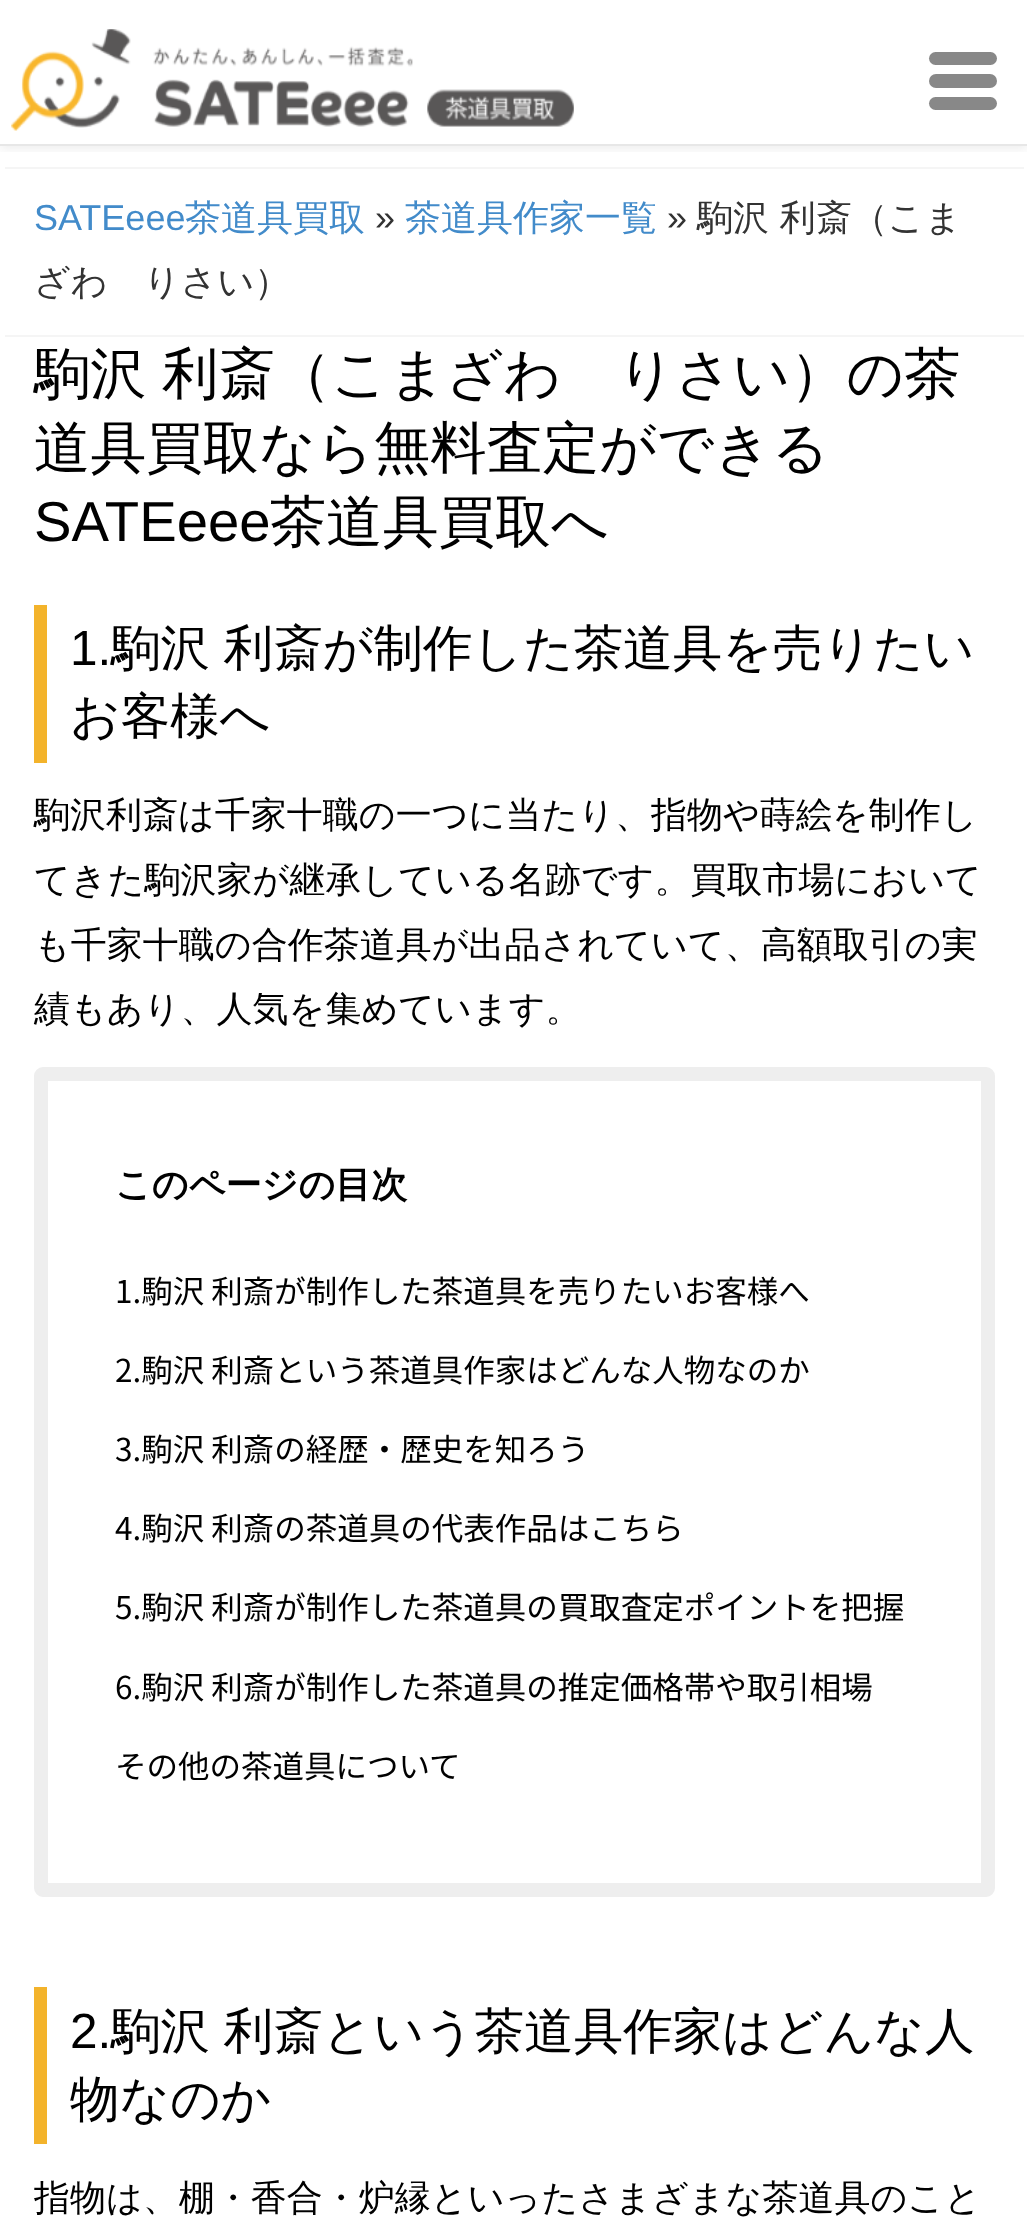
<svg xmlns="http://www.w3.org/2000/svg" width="1027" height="2220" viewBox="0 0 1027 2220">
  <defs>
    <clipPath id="clip1"><rect x="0" y="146" width="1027" height="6"/></clipPath>
    <filter id="blur1" x="-50%" y="-200%" width="200%" height="500%"><feGaussianBlur stdDeviation="5.5"/></filter>
  </defs>
  <rect width="100%" height="100%" fill="#ffffff"/>
  <g clip-path="url(#clip1)">
    <rect x="0" y="14" width="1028" height="135" fill="#000000" fill-opacity="0.07" filter="url(#blur1)"/>
  </g>
  <rect x="0" y="144" width="1027" height="2" fill="#e7e7e7"/>
  <rect x="929" y="52" width="68" height="13" rx="6.5" fill="#888888"/>
  <rect x="929" y="74" width="68" height="14" rx="7" fill="#888888"/>
  <rect x="929" y="97" width="68" height="13" rx="6.5" fill="#888888"/>
  <image x="11" y="29" width="563" height="102" href="img1.png"/>
  <rect x="5" y="167" width="1019" height="2" fill="#f5f5f5"/>
  <rect x="5" y="335" width="1019" height="2" fill="#f5f5f5"/>
  <text x="34" y="230" font-family="Liberation Sans" font-size="36" fill="#428bca">SATEeee</text>
  <text x="185" y="230" font-family="WenQuanYi Zen Hei" font-size="36" font-weight="500" fill="#428bca">茶道具買取</text>
  <text x="375" y="230" font-family="Liberation Sans" font-size="36" fill="#333333">»</text>
  <text x="405" y="230" font-family="WenQuanYi Zen Hei" font-size="36" font-weight="500" fill="#428bca">茶道具作家一覧</text>
  <text x="667" y="230" font-family="Liberation Sans" font-size="36" fill="#333333">»</text>
  <text x="697" y="230" font-family="WenQuanYi Zen Hei" font-size="36" font-weight="500" fill="#333333">駒沢 利斎（こま</text>
  <text x="34" y="294" font-family="WenQuanYi Zen Hei" font-size="36" font-weight="500" fill="#333333">ざわ　りさい）</text>
  <text x="34" y="393" word-spacing="-1" font-family="WenQuanYi Zen Hei" font-size="56.25" font-weight="500" fill="#000000">駒沢 利斎（こまざわ　りさい）の茶</text>
  <text x="34" y="467" font-family="WenQuanYi Zen Hei" font-size="56.25" font-weight="500" fill="#000000">道具買取なら無料査定ができる</text>
  <text x="34" y="541" font-family="Liberation Sans" font-size="56.25" fill="#000000">SATEeee</text>
  <text x="270" y="541" font-family="WenQuanYi Zen Hei" font-size="56.25" font-weight="500" fill="#000000">茶道具買取へ</text>
  <rect x="34" y="605" width="13" height="158" fill="#f3b32b"/>
  <text x="70" y="665" font-family="Liberation Sans" font-size="49.5" fill="#000000">1.</text>
  <text x="111" y="665" word-spacing="-1" font-family="WenQuanYi Zen Hei" font-size="49.5" font-weight="500" fill="#000000">駒沢 利斎が制作した茶道具を売りたい</text>
  <text x="70" y="733" font-family="WenQuanYi Zen Hei" font-size="49.5" font-weight="500" fill="#000000">お客様へ</text>
  <text x="34" y="827" font-family="WenQuanYi Zen Hei" font-size="36" font-weight="500" fill="#000000">駒沢利斎は千家十職の一つに当たり、指物や蒔絵を制作し</text>
  <text x="34" y="892" font-family="WenQuanYi Zen Hei" font-size="36" font-weight="500" fill="#000000">てきた駒沢家が継承している名跡です。買取市場において</text>
  <text x="34" y="957" font-family="WenQuanYi Zen Hei" font-size="36" font-weight="500" fill="#000000">も千家十職の合作茶道具が出品されていて、高額取引の実</text>
  <text x="34" y="1021" font-family="WenQuanYi Zen Hei" font-size="36" font-weight="500" fill="#000000">績もあり、人気を集めています。</text>
  <rect x="41" y="1074" width="947" height="816" rx="2" fill="none" stroke="#eeeeee" stroke-width="14"/>
  <text x="115" y="1197" font-family="WenQuanYi Zen Hei" font-size="36" font-weight="bold" fill="#000000">このページの目次</text>
  <text x="115" y="1303" font-family="Noto Sans JP" font-size="31.5" fill="#000000">1.駒沢 利斎が制作した茶道具を売りたいお客様へ</text>
  <text x="115" y="1382" font-family="Noto Sans JP" font-size="31.5" fill="#000000">2.駒沢 利斎という茶道具作家はどんな人物なのか</text>
  <text x="115" y="1461" font-family="Noto Sans JP" font-size="31.5" fill="#000000">3.駒沢 利斎の経歴・歴史を知ろう</text>
  <text x="115" y="1540" font-family="Noto Sans JP" font-size="31.5" fill="#000000">4.駒沢 利斎の茶道具の代表作品はこちら</text>
  <text x="115" y="1619" font-family="Noto Sans JP" font-size="31.5" fill="#000000">5.駒沢 利斎が制作した茶道具の買取査定ポイントを把握</text>
  <text x="115" y="1699" font-family="Noto Sans JP" font-size="31.5" fill="#000000">6.駒沢 利斎が制作した茶道具の推定価格帯や取引相場</text>
  <text x="115" y="1778" font-family="Noto Sans JP" font-size="31.5" fill="#000000">その他の茶道具について</text>
  <rect x="34" y="1987" width="13" height="157" fill="#f3b32b"/>
  <text x="70" y="2048" font-family="Liberation Sans" font-size="49.5" fill="#000000">2.</text>
  <text x="111" y="2048" word-spacing="-1" font-family="WenQuanYi Zen Hei" font-size="49.5" font-weight="500" fill="#000000">駒沢 利斎という茶道具作家はどんな人</text>
  <text x="70" y="2116" font-family="WenQuanYi Zen Hei" font-size="49.5" font-weight="500" fill="#000000">物なのか</text>
  <text x="34" y="2210" font-family="WenQuanYi Zen Hei" font-size="36" font-weight="500" fill="#000000">指物は、棚・香合・炉縁といったさまざまな茶道具のこと</text>
</svg>
